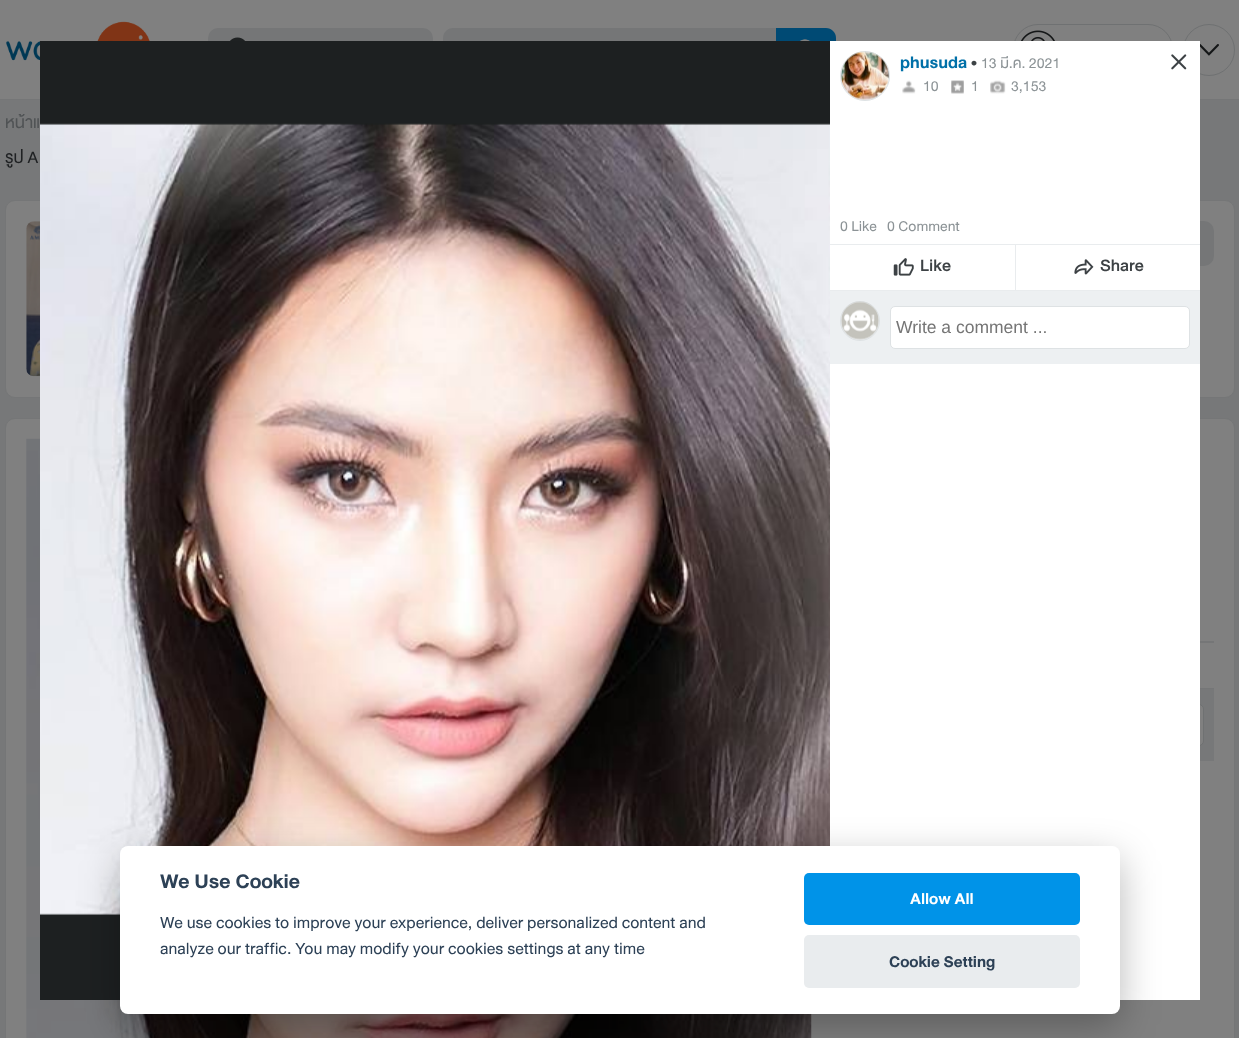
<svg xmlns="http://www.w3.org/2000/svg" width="1239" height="1038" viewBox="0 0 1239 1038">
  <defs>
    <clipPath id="clip1"><rect x="5" y="100" width="1230" height="80"/></clipPath>
    <filter id="blur1" x="-50%" y="-200%" width="200%" height="500%"><feGaussianBlur stdDeviation="19"/></filter>
  </defs>
  <rect width="100%" height="100%" fill="#808080"/>
  <rect x="0" y="99" width="1239" height="1" fill="#757677"/>
  <image x="6" y="21" width="144" height="40" href="img1.png"/>
  <rect x="208" y="28" width="225" height="45" rx="10" fill="#757677"/>
  <image x="230" y="37" width="15" height="4" href="img2.png"/>
  <path d="M453 28H776V73H453C447.5 73 443 68.5 443 63V38C443 32.5 447.5 28 453 28Z" fill="#757677"/>
  <path d="M776 28H826C831.5 28 836 32.5 836 38V63C836 68.5 831.5 73 826 73H776Z" fill="#004a74"/>
  <image x="800" y="39" width="11" height="2" href="img3.png"/>
  <rect x="1013.5" y="24.5" width="159" height="51" rx="24.5" fill="none" stroke="#6f7172"/>
  <image x="1020" y="30" width="35" height="11" href="img4.png"/>
  <circle cx="1209" cy="50" r="25.5" fill="none" stroke="#6f7172"/>
  <image x="1200" y="44" width="19" height="12" href="img5.png"/>
  <rect x="0" y="100" width="1239" height="938" fill="#777879"/>
  <text x="5" y="128" font-family="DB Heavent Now" font-size="17.5" fill="#505355">หน้าแ</text>
  <g clip-path="url(#clip1)">
    <text x="5" y="163" font-family="DB Heavent Now" font-size="17.5" fill="#1f2123">รูป A</text>
  </g>
  <rect x="5.5" y="200.5" width="1229" height="197" rx="9.5" fill="#808080" stroke="#757677"/>
  <image x="26" y="221" width="14" height="156" href="img6.png"/>
  <rect x="1099" y="221" width="115" height="45" rx="10" fill="#757677"/>
  <rect x="5.5" y="418.5" width="1229" height="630" rx="9.5" fill="#808080" stroke="#757677"/>
  <image x="26" y="438" width="786" height="600" href="img7.png"/>
  <rect x="1200" y="641" width="14" height="48" fill="#757677"/>
  <rect x="1200" y="643" width="14" height="45" fill="#808080"/>
  <rect x="1200" y="689" width="14" height="72" fill="#777879"/>
  <rect x="891.5" y="704.5" width="312" height="41" rx="4.5" fill="#808080" stroke="#6f7172"/>
  <rect x="830" y="41" width="370" height="959" fill="#ffffff"/>
  <rect x="40" y="41" width="790" height="959" fill="#1d2021"/>
  <image x="40" y="123" width="790" height="792" href="img8.png"/>
  <circle cx="865" cy="76" r="24.5" fill="#edf0f2" stroke="#dee2e4"/>
  <image x="841" y="51" width="48" height="49" href="img9.png"/>
  <text x="900" y="68" font-family="DB Heavent Now" font-size="17.5" font-weight="bold" fill="#0070a8">phusuda</text>
  <text x="971" y="68" font-family="DB Heavent Now" font-size="17.5" fill="#3d4245">•</text>
  <text x="981" y="68" font-family="DB Heavent Now" font-size="15" fill="#8c9396">13 มี.ค. 2021</text>
  <image x="902" y="80" width="14" height="14" href="img10.png"/>
  <text x="923" y="91" font-family="DB Heavent Now" font-size="15" fill="#8c9396">10</text>
  <image x="951" y="80" width="13" height="14" href="img11.png"/>
  <text x="971" y="91" font-family="DB Heavent Now" font-size="15" fill="#8c9396">1</text>
  <image x="990" y="80" width="16" height="14" href="img12.png"/>
  <text x="1011" y="91" font-family="DB Heavent Now" font-size="15" fill="#8c9396">3,153</text>
  <text x="840" y="231" font-family="DB Heavent Now" font-size="15" fill="#8c9396">0 Like</text>
  <text x="887" y="231" font-family="DB Heavent Now" font-size="15" fill="#8c9396">0 Comment</text>
  <rect x="830" y="244" width="370" height="47" fill="#e9ecee"/>
  <rect x="830" y="245" width="185" height="45" fill="#ffffff"/>
  <image x="893" y="258" width="21" height="18" href="img13.png"/>
  <text x="920" y="271" font-family="DB Heavent Now" font-size="17.5" font-weight="500" fill="#3d4245">Like</text>
  <rect x="1016" y="245" width="184" height="45" fill="#ffffff"/>
  <image x="1074" y="259" width="20" height="16" href="img14.png"/>
  <text x="1100" y="271" font-family="DB Heavent Now" font-size="17.5" font-weight="500" fill="#3d4245">Share</text>
  <rect x="830" y="291" width="370" height="73" fill="#edf0f2"/>
  <circle cx="860" cy="321" r="19.5" fill="none" stroke="#dee2e4"/>
  <image x="841" y="301" width="38" height="39" href="img15.png"/>
  <rect x="890.5" y="306.5" width="299" height="42" rx="4.5" fill="#ffffff" stroke="#dee2e4"/>
  <text x="896" y="333" font-family="Liberation Sans" font-size="17.5" fill="#757575">Write a comment ...</text>
  <image x="1171" y="54" width="16" height="16" href="img16.png"/>
  <rect x="120" y="859" width="1000" height="167" rx="8" fill="#020203" fill-opacity="0.28" filter="url(#blur1)"/>
  <rect x="120" y="846" width="1000" height="168" rx="8" fill="#ffffff"/>
  <text x="160" y="888" font-family="DB Heavent Now" font-size="21" font-weight="bold" fill="#2d4156">We Use Cookie</text>
  <text x="160" y="928" font-family="DB Heavent Now" font-size="17" fill="#2d4156">We use cookies to improve your experience, deliver personalized content and</text>
  <text x="160" y="954" font-family="DB Heavent Now" font-size="17" fill="#2d4156">analyze our traffic. You may modify your cookies settings at any time</text>
  <rect x="804" y="873" width="276" height="52" rx="5" fill="#0093e8"/>
  <text x="910" y="904" font-family="DB Heavent Now" font-size="16.5" font-weight="bold" fill="#ffffff">Allow All</text>
  <rect x="804" y="935" width="276" height="53" rx="5" fill="#e9ecee"/>
  <text x="889" y="967" font-family="DB Heavent Now" font-size="16.5" font-weight="bold" fill="#2d4156">Cookie Setting</text>
</svg>
